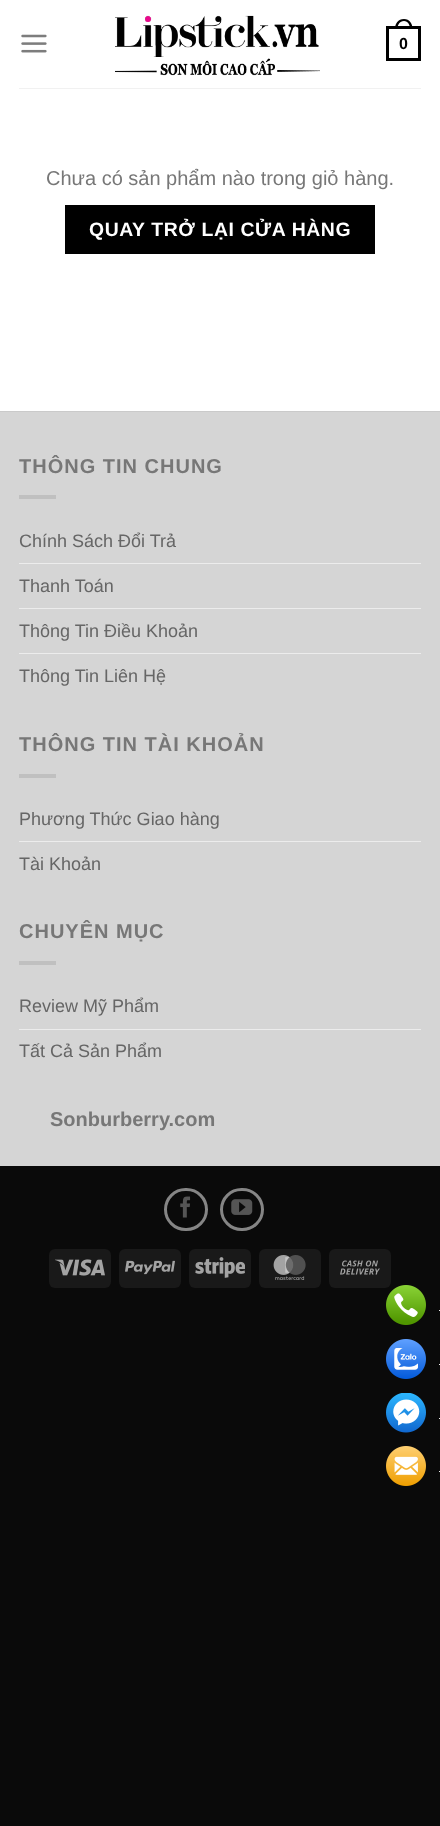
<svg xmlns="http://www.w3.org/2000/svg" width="440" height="1826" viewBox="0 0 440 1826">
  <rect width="100%" height="100%" fill="#0a0a0a"/>
  <rect x="0" y="0" width="440" height="411" fill="#ffffff"/>
  <image x="21" y="34" width="26" height="19" href="img1.png"/>
  <image x="115" y="15" width="205" height="61" href="img2.png"/>
  <rect x="387.5" y="27.5" width="32" height="32" fill="none" stroke="#000000" stroke-width="3"/>
  <path d="M404 19C409.5 19 412.5 23.5 412.5 29H395C395 23.5 398 19 404 19ZM404 21C408 21 410 25 410 29H397.5C397.5 25 399.5 21 404 21Z" fill="#000000" fill-rule="evenodd"/>
  <text x="399" y="49" font-family="Liberation Sans" font-size="16" font-weight="bold" fill="#000000">0</text>
  <rect x="19" y="88" width="402" height="1" fill="#f1f1f1"/>
  <text x="46" y="185" font-family="Liberation Sans" font-size="20" fill="#777777">Chưa có sản phẩm nào trong giỏ hàng.</text>
  <rect x="65" y="205" width="310" height="49" fill="#000000"/>
  <text x="89" y="236" font-family="Liberation Sans" font-size="19.4" font-weight="bold" letter-spacing="0.6" fill="#ffffff">QUAY TRỞ LẠI CỬA HÀNG</text>
  <rect x="0" y="412" width="440" height="754" fill="#d5d5d5"/>
  <rect x="0" y="411" width="440" height="1" fill="#cacaca"/>
  <text x="19" y="473" font-family="Liberation Sans" font-size="20" font-weight="bold" letter-spacing="1" fill="#777777">THÔNG TIN CHUNG</text>
  <rect x="19" y="495" width="37" height="4" fill="#c0c0c0"/>
  <text x="19" y="547" font-family="Liberation Sans" font-size="18" fill="#666666">Chính Sách Đổi Trả</text>
  <rect x="19" y="563" width="402" height="1" fill="#ececec"/>
  <text x="19" y="592" font-family="Liberation Sans" font-size="18" fill="#666666">Thanh Toán</text>
  <rect x="19" y="608" width="402" height="1" fill="#ececec"/>
  <text x="19" y="637" font-family="Liberation Sans" font-size="18" fill="#666666">Thông Tin Điều Khoản</text>
  <rect x="19" y="653" width="402" height="1" fill="#ececec"/>
  <text x="19" y="682" font-family="Liberation Sans" font-size="18" fill="#666666">Thông Tin Liên Hệ</text>
  <text x="19" y="751" font-family="Liberation Sans" font-size="20" font-weight="bold" letter-spacing="1" fill="#777777">THÔNG TIN TÀI KHOẢN</text>
  <rect x="19" y="774" width="37" height="4" fill="#c0c0c0"/>
  <text x="19" y="825" font-family="Liberation Sans" font-size="18" fill="#666666">Phương Thức Giao hàng</text>
  <rect x="19" y="841" width="402" height="1" fill="#ececec"/>
  <text x="19" y="870" font-family="Liberation Sans" font-size="18" fill="#666666">Tài Khoản</text>
  <text x="19" y="938" font-family="Liberation Sans" font-size="20" font-weight="bold" letter-spacing="1" fill="#777777">CHUYÊN MỤC</text>
  <rect x="19" y="961" width="37" height="4" fill="#c0c0c0"/>
  <text x="19" y="1012" font-family="Liberation Sans" font-size="18" fill="#666666">Review Mỹ Phẩm</text>
  <rect x="19" y="1029" width="402" height="1" fill="#ececec"/>
  <text x="19" y="1057" font-family="Liberation Sans" font-size="18" fill="#666666">Tất Cả Sản Phẩm</text>
  <text x="50" y="1126" font-family="Liberation Sans" font-size="20" font-weight="bold" fill="#777777">Sonburberry.com</text>
  <rect x="165.5" y="1189.5" width="41" height="40" rx="20" fill="none" stroke="#858585" stroke-width="3"/>
  <image x="180" y="1196" width="11" height="22" href="img3.png"/>
  <rect x="221.5" y="1189.5" width="41" height="40" rx="20" fill="none" stroke="#858585" stroke-width="3"/>
  <image x="231" y="1199" width="22" height="16" href="img4.png"/>
  <rect x="49" y="1249" width="62" height="39" rx="6" fill="#191919"/>
  <image x="55" y="1259" width="50" height="17" href="img5.png"/>
  <rect x="119" y="1249" width="62" height="39" rx="6" fill="#191919"/>
  <image x="125" y="1260" width="50" height="15" href="img6.png"/>
  <rect x="189" y="1249" width="62" height="39" rx="6" fill="#191919"/>
  <image x="195" y="1257" width="50" height="21" href="img7.png"/>
  <rect x="259" y="1249" width="62" height="39" rx="6" fill="#191919"/>
  <image x="273" y="1255" width="33" height="25" href="img8.png"/>
  <rect x="329" y="1249" width="62" height="39" rx="6" fill="#191919"/>
  <image x="340" y="1260" width="40" height="15" href="img9.png"/>
  <image x="386" y="1285" width="40" height="40" href="img10.png"/>
  <rect x="439" y="1310" width="1" height="1" fill="#efefef"/>
  <image x="386" y="1339" width="40" height="40" href="img11.png"/>
  <rect x="439" y="1364" width="1" height="1" fill="#efefef"/>
  <image x="386" y="1393" width="40" height="40" href="img12.png"/>
  <rect x="439" y="1418" width="1" height="1" fill="#efefef"/>
  <image x="386" y="1446" width="40" height="40" href="img13.png"/>
  <rect x="439" y="1471" width="1" height="1" fill="#efefef"/>
</svg>
